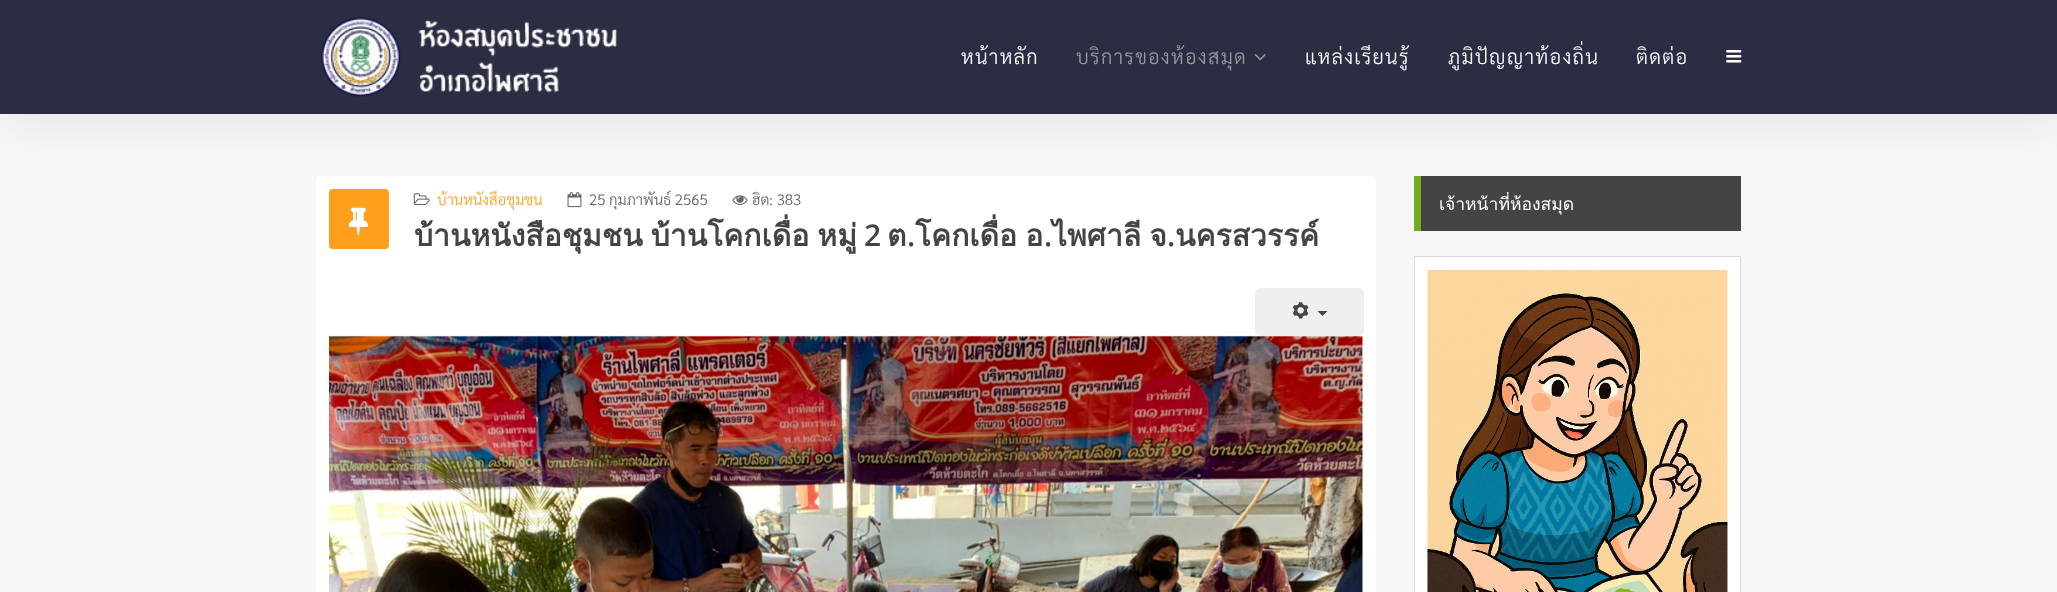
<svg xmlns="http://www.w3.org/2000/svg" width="2057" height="592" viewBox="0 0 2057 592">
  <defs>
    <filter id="blur1" x="-50%" y="-200%" width="200%" height="500%"><feGaussianBlur stdDeviation="20"/></filter>
  </defs>
  <rect width="100%" height="100%" fill="#f7f7f7"/>
  <rect x="316" y="176" width="1060" height="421" rx="5" fill="#ffffff"/>
  <rect x="329" y="189" width="60" height="60" rx="4" fill="#ff9f1c"/>
  <rect x="1421" y="176" width="320" height="55" fill="#444444"/>
  <rect x="1414" y="176" width="7" height="55" fill="#73ae20"/>
  <rect x="3" y="15" width="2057" height="114" fill="#000000" fill-opacity="0.06" filter="url(#blur1)"/>
  <rect x="0" y="0" width="2057" height="114" fill="#2b2d42"/>
  <image x="321" y="17" width="296" height="80" href="img1.png"/>
  <text x="961" y="64" font-family="Sarabun" font-size="20" font-weight="300" letter-spacing="1.25" fill="#ffffff">หน้าหลัก</text>
  <text x="1076" y="64" font-family="Sarabun" font-size="20" font-weight="300" letter-spacing="1.25" fill="#999999">บริการของห้องสมุด</text>
  <image x="1254" y="54" width="12" height="7" href="img2.png"/>
  <text x="1305" y="64" font-family="Sarabun" font-size="20" font-weight="300" letter-spacing="1.25" fill="#ffffff">แหล่งเรียนรู้</text>
  <text x="1448" y="64" font-family="Sarabun" font-size="20" font-weight="300" letter-spacing="1.25" fill="#ffffff">ภูมิปัญญาท้องถิ่น</text>
  <text x="1636" y="64" font-family="Sarabun" font-size="20" font-weight="300" letter-spacing="1.25" fill="#ffffff">ติดต่อ</text>
  <image x="1726" y="50" width="16" height="13" href="img3.png"/>
  <image x="348" y="207" width="20" height="29" href="img4.png"/>
  <image x="413" y="193" width="17" height="12" href="img5.png"/>
  <text x="437" y="205" font-family="Sarabun" font-size="15" font-weight="300" fill="#ff9f1c">บ้านหนังสือชุมชน</text>
  <image x="567" y="192" width="15" height="16" href="img6.png"/>
  <text x="589" y="205" font-family="Sarabun" font-size="15" font-weight="300" fill="#666666">25 กุมภาพันธ์ 2565</text>
  <image x="732" y="195" width="16" height="10" href="img7.png"/>
  <text x="752" y="205" font-family="Sarabun" font-size="15" font-weight="300" fill="#666666">ฮิต: 383</text>
  <text x="414" y="246" word-spacing="-2" font-family="Loma" font-size="30" font-weight="bold" fill="#444444">บ้านหนังสือชุมชน บ้านโคกเดื่อ หมู่</text>
  <text x="864" y="246" font-family="Open Sans" font-size="30" font-weight="600" fill="#444444">2</text>
  <text x="887" y="246" font-family="Loma" font-size="30" font-weight="bold" fill="#444444">ต</text>
  <text x="907" y="246" font-family="Open Sans" font-size="30" font-weight="600" fill="#444444">.</text>
  <text x="915" y="246" word-spacing="-2" font-family="Loma" font-size="30" font-weight="bold" fill="#444444">โคกเดื่อ อ</text>
  <text x="1044" y="246" font-family="Open Sans" font-size="30" font-weight="600" fill="#444444">.</text>
  <text x="1052" y="246" word-spacing="-2" font-family="Loma" font-size="30" font-weight="bold" fill="#444444">ไพศาลี จ</text>
  <text x="1167" y="246" font-family="Open Sans" font-size="30" font-weight="600" fill="#444444">.</text>
  <text x="1175" y="246" font-family="Loma" font-size="30" font-weight="bold" fill="#444444">นครสวรรค์</text>
  <image x="329" y="335" width="1034" height="257" href="img9.png"/>
  <rect x="1255" y="288" width="109" height="48" rx="5" fill="#efefef"/>
  <image x="1292" y="302" width="17" height="17" href="img8.png"/>
  <path d="M1317.5 311H1327.5L1322.5 316Z" fill="#444444"/>
  <text x="1439" y="210" font-family="Loma" font-size="17.5" fill="#ffffff">เจ้าหน้าที่ห้องสมุด</text>
  <rect x="1414.5" y="256.5" width="326" height="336" fill="#ffffff" stroke="#dddddd"/>
  <image x="1427" y="270" width="301" height="322" href="img10.png"/>
</svg>
